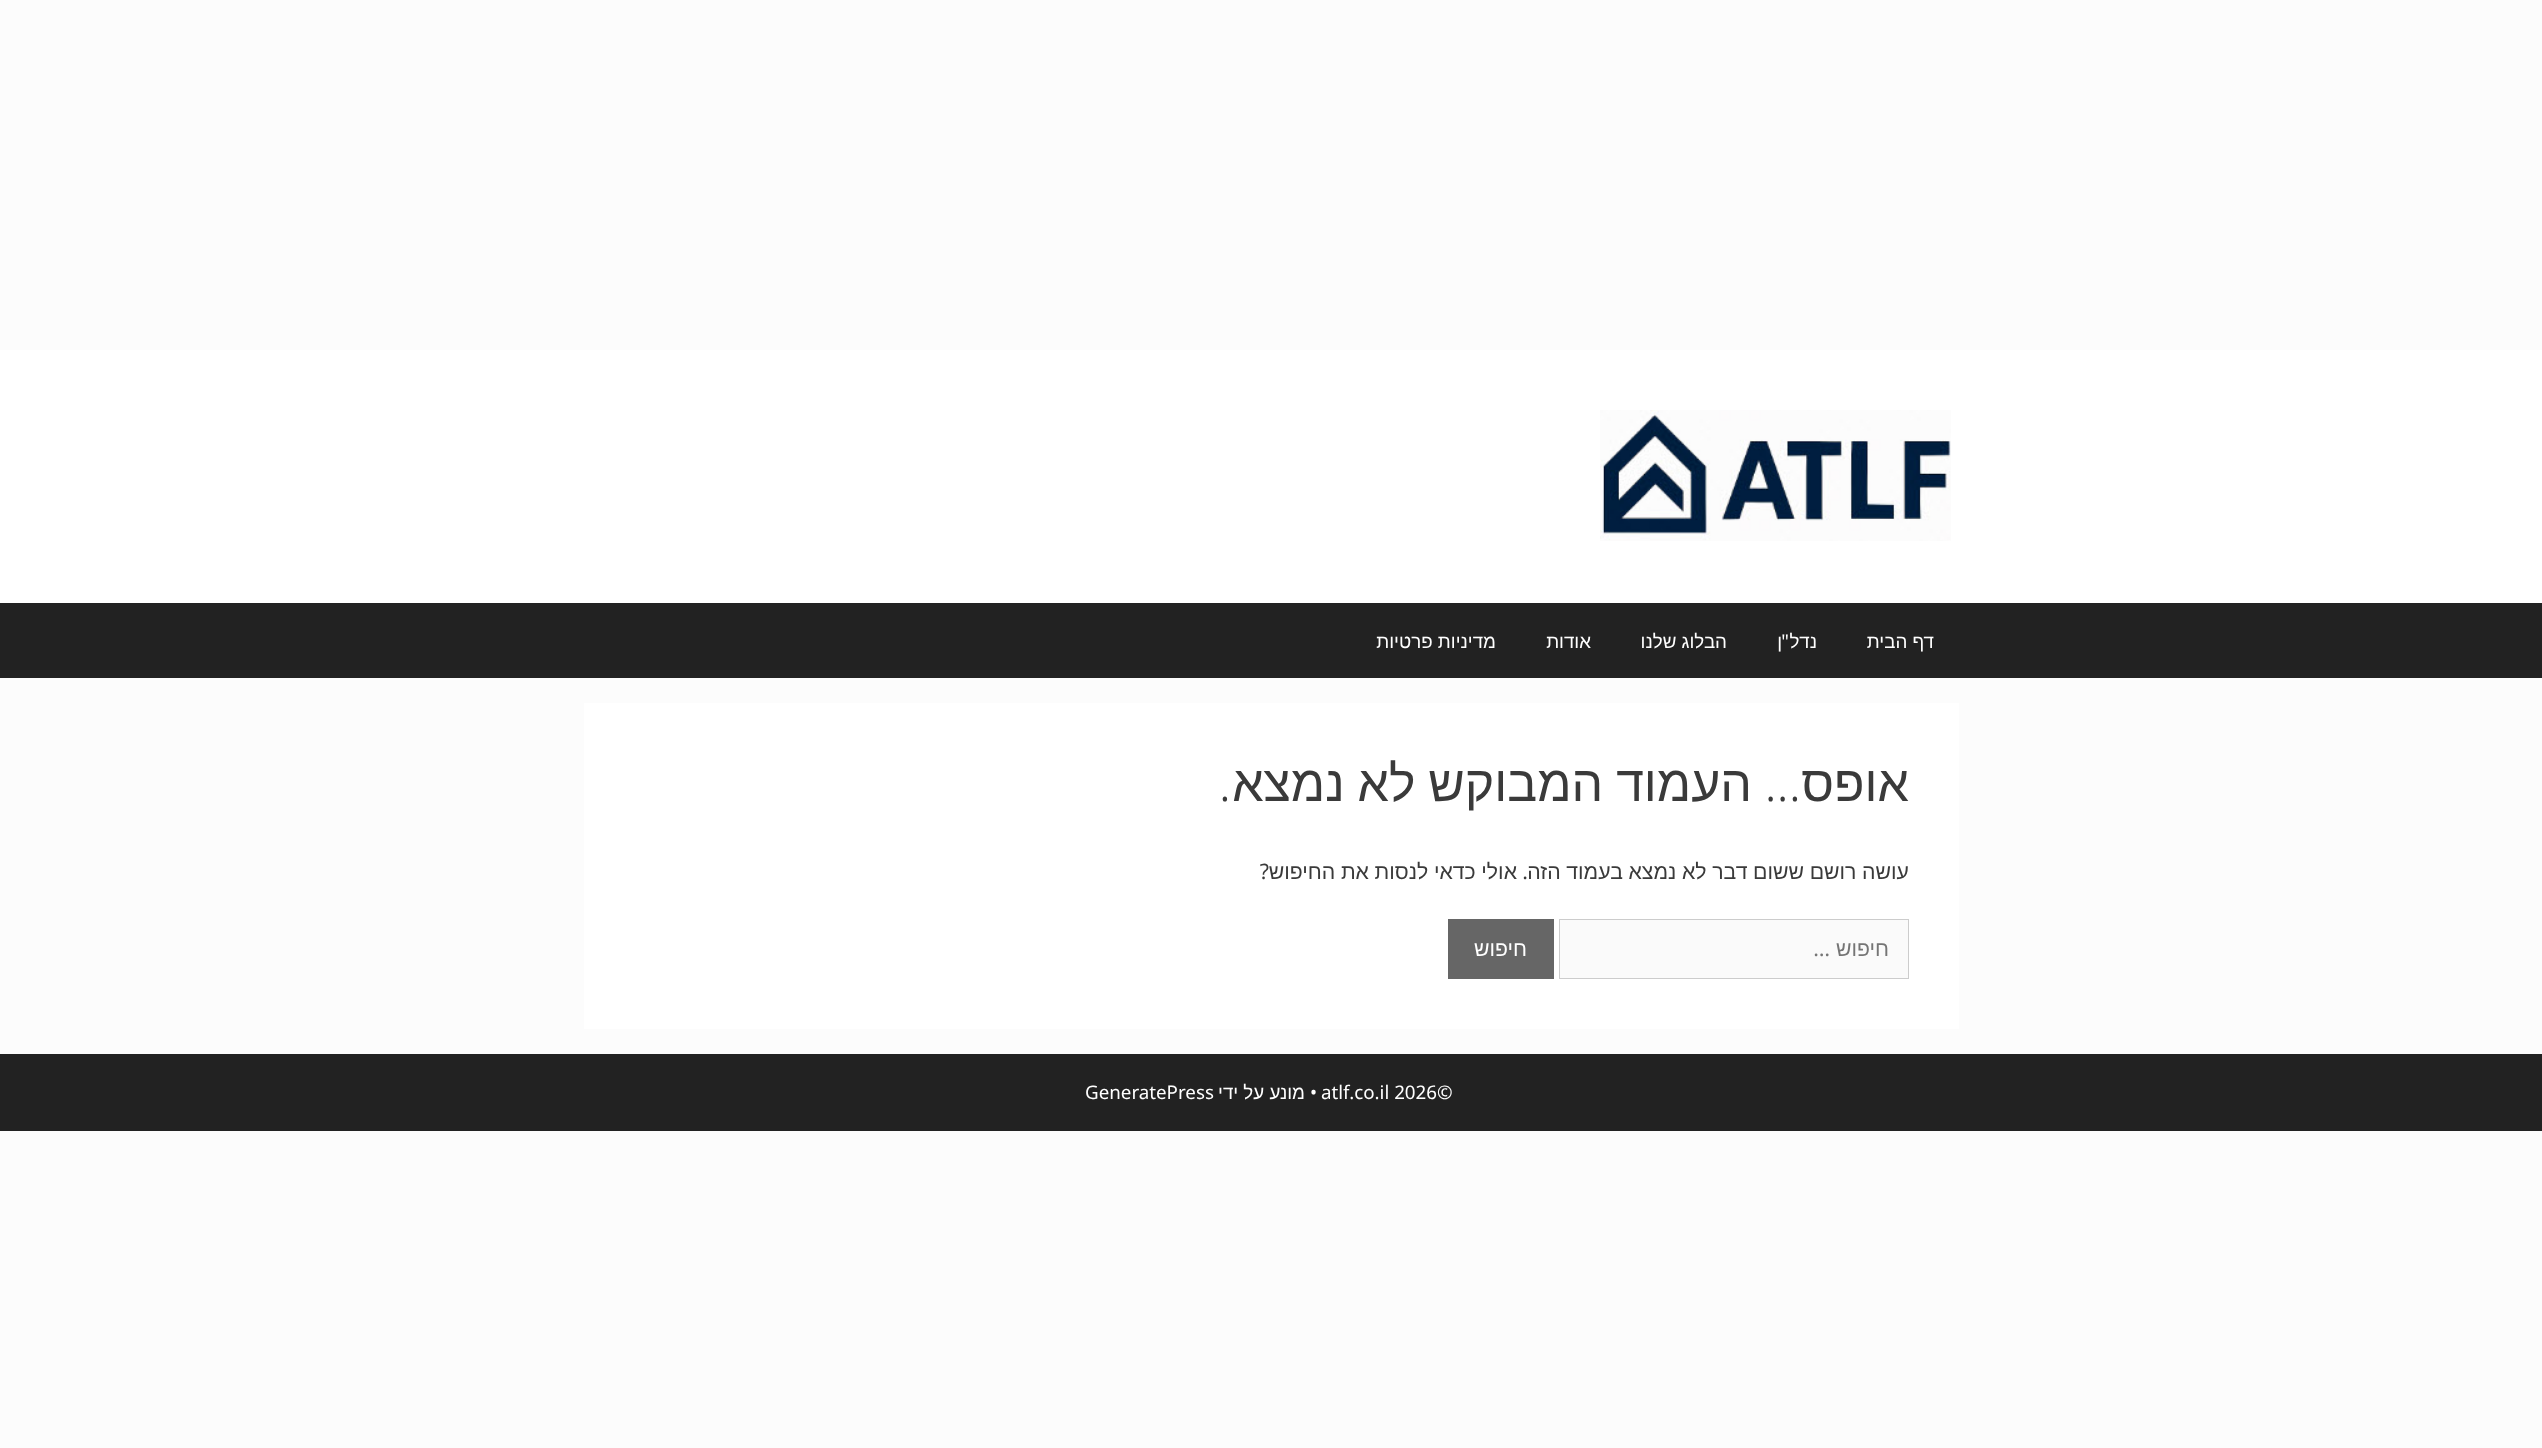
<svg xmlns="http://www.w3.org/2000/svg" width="2542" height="1448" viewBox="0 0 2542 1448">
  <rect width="100%" height="100%" fill="#fcfcfc"/>
  <rect x="0" y="350" width="2542" height="253" fill="#ffffff"/>
  <image x="1600" y="410" width="351" height="131" href="img1.png"/>
  <rect x="0" y="603" width="2542" height="75" fill="#222222"/>
  <text x="1934" y="648" font-family="Liberation Sans" font-size="18.75" direction="rtl" fill="#ffffff">דף הבית</text>
  <text x="1817" y="648" font-family="Liberation Sans" font-size="18.75" direction="rtl" fill="#ffffff">נדל</text>
  <text x="1789" y="648" font-family="Noto Sans" font-size="18.75" direction="rtl" fill="#ffffff">"</text>
  <text x="1782" y="648" font-family="Liberation Sans" font-size="18.75" direction="rtl" fill="#ffffff">ן</text>
  <text x="1727" y="648" font-family="Liberation Sans" font-size="18.75" direction="rtl" fill="#ffffff">הבלוג שלנו</text>
  <text x="1591" y="648" font-family="Liberation Sans" font-size="18.75" direction="rtl" fill="#ffffff">אודות</text>
  <text x="1496" y="648" font-family="Liberation Sans" font-size="18.75" direction="rtl" fill="#ffffff">מדיניות פרטיות</text>
  <rect x="584" y="703" width="1375" height="326" fill="#ffffff"/>
  <text x="1909" y="801" font-family="Liberation Sans" font-size="50" direction="rtl" fill="#3a3a3a">אופס</text>
  <text x="1801" y="801" font-family="Noto Sans" font-size="50" font-weight="300" direction="rtl" fill="#3a3a3a">...</text>
  <text x="1752" y="801" word-spacing="-1" font-family="Liberation Sans" font-size="50" direction="rtl" fill="#3a3a3a">העמוד המבוקש לא נמצא</text>
  <text x="1231" y="801" font-family="Noto Sans" font-size="50" font-weight="300" direction="rtl" fill="#3a3a3a">.</text>
  <text x="1909" y="879" word-spacing="-0.25" font-family="Liberation Sans" font-size="21.25" direction="rtl" fill="#3a3a3a">עושה רושם ששום דבר לא נמצא בעמוד הזה</text>
  <text x="1528" y="879" font-family="Noto Sans" font-size="21.25" direction="rtl" fill="#3a3a3a">.</text>
  <text x="1517" y="879" word-spacing="-0.25" font-family="Liberation Sans" font-size="21.25" direction="rtl" fill="#3a3a3a">אולי כדאי לנסות את החיפוש</text>
  <text x="1269" y="879" font-family="Noto Sans" font-size="21.25" direction="rtl" fill="#3a3a3a">?</text>
  <rect x="1559.5" y="919.5" width="349" height="59" fill="#fafafa" stroke="#cccccc"/>
  <text x="1889" y="956" font-family="Liberation Sans" font-size="21.25" direction="rtl" fill="#757575">חיפוש</text>
  <text x="1830" y="956" font-family="Noto Sans" font-size="21.25" direction="rtl" fill="#757575">…</text>
  <rect x="1448" y="919" width="106" height="60" fill="#666666"/>
  <text x="1527" y="956" font-family="Liberation Sans" font-size="21.25" direction="rtl" fill="#ffffff">חיפוש</text>
  <rect x="0" y="1054" width="2542" height="77" fill="#222222"/>
  <text x="1321" y="1099" font-family="Noto Sans" font-size="18.75" fill="#ffffff">atlf.co.il 2026©</text>
  <text x="1317" y="1099" font-family="Noto Sans" font-size="18.75" direction="rtl" fill="#ffffff">•</text>
  <text x="1305" y="1099" font-family="Liberation Sans" font-size="18.75" direction="rtl" fill="#ffffff">מונע על ידי</text>
  <text x="1085" y="1099" font-family="Noto Sans" font-size="18.75" fill="#ffffff">GeneratePress</text>
</svg>
